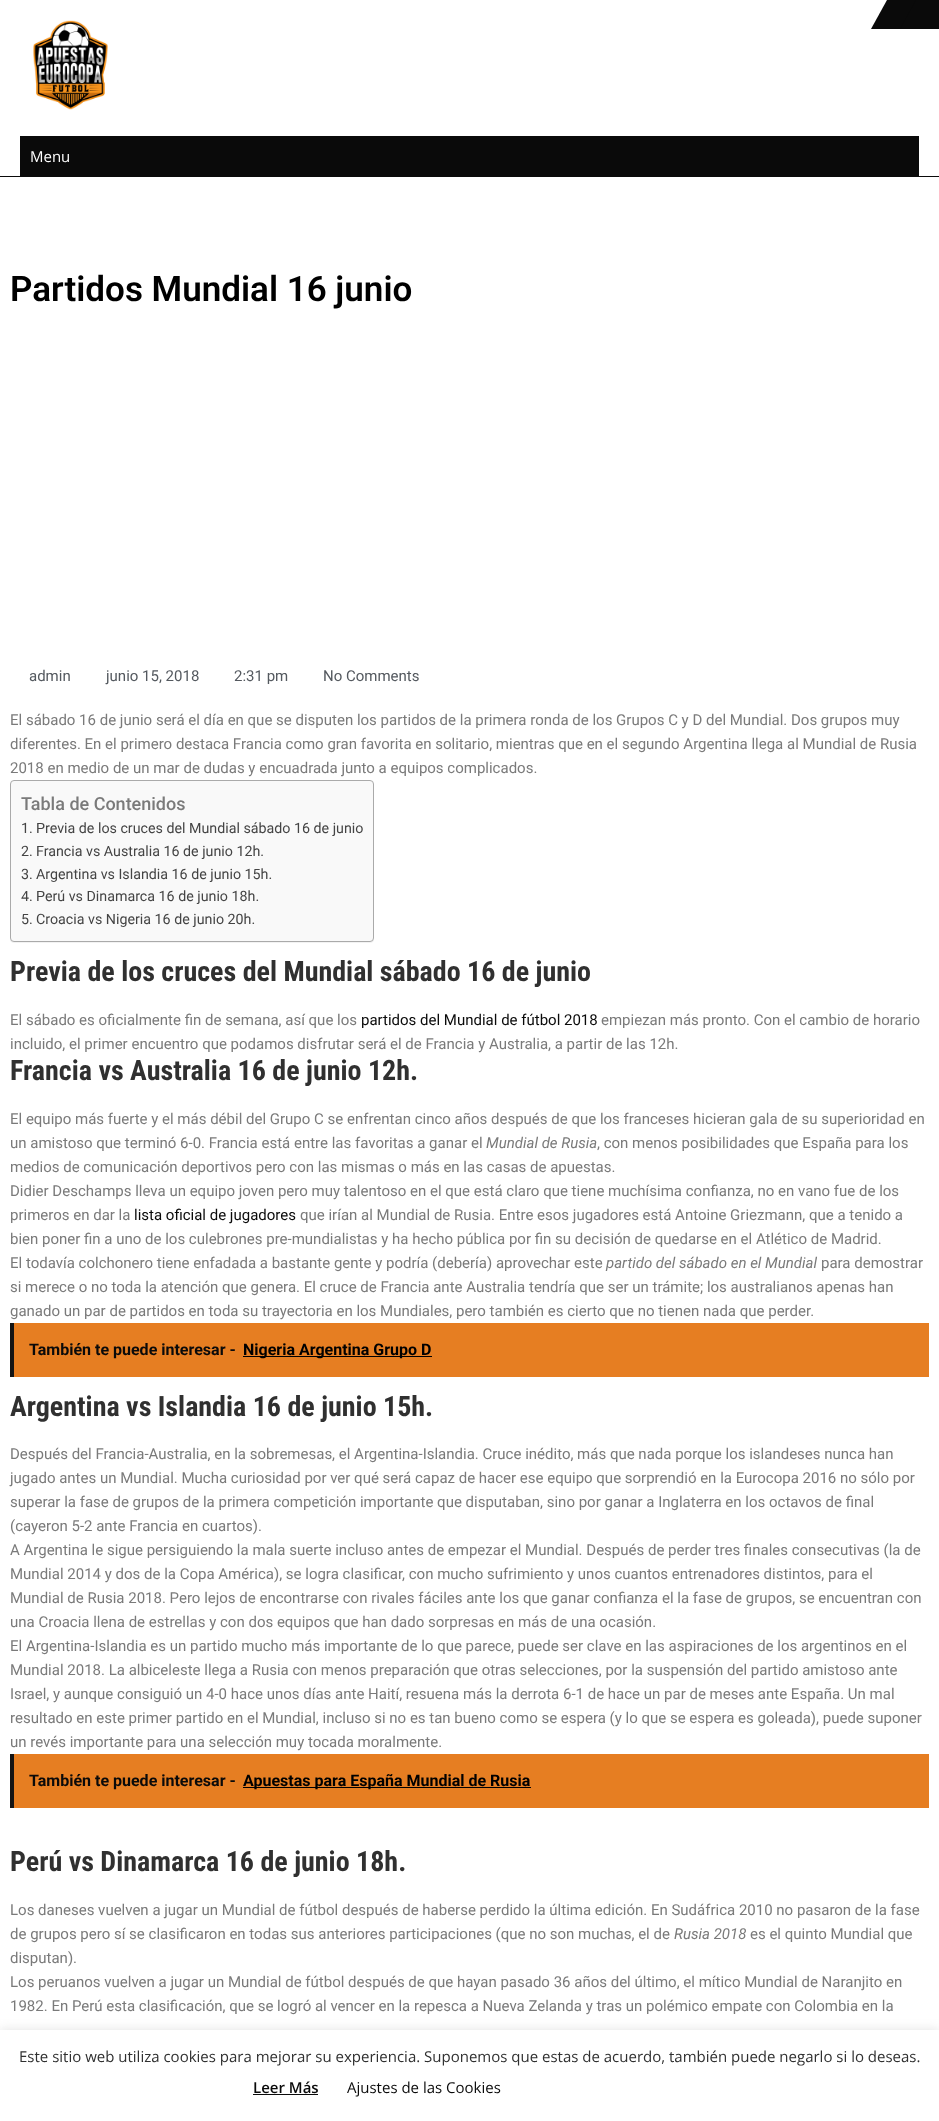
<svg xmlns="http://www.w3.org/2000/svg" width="939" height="2121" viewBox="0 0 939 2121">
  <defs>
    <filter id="blur1" x="-50%" y="-200%" width="200%" height="500%"><feGaussianBlur stdDeviation="0.5"/></filter>
    <filter id="blur2" x="-50%" y="-200%" width="200%" height="500%"><feGaussianBlur stdDeviation="5"/></filter>
  </defs>
  <rect width="100%" height="100%" fill="#ffffff"/>
  <rect x="0" y="176" width="939" height="1" fill="#0a0a0a"/>
  <path d="M887 0H927L911 29H871Z" fill="#0a0a0a"/>
  <path d="M916 0H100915L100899 29H900Z" fill="#0a0a0a"/>
  <image x="33" y="20" width="75" height="90" href="img1.png"/>
  <rect x="20" y="136" width="899" height="40" fill="#0a0a0a"/>
  <text x="30" y="162" font-family="Open Sans" font-size="15" fill="#ffffff">Menu</text>
  <text x="10" y="301" font-family="Roboto" font-size="35" font-weight="600" fill="#000000">Partidos Mundial 16 junio</text>
  <text x="29" y="681" font-family="Roboto" font-size="15" fill="#54595f">admin</text>
  <text x="106" y="681" font-family="Roboto" font-size="15" fill="#54595f">junio 15, 2018</text>
  <text x="234" y="681" font-family="Roboto" font-size="15" fill="#54595f">2:31 pm</text>
  <text x="323" y="681" font-family="Roboto" font-size="15" fill="#54595f">No Comments</text>
  <text x="10" y="725" font-family="Roboto" font-size="15" fill="#7a7a7a">El sábado 16 de junio será el día en que se disputen los partidos de la primera ronda de los Grupos C y D del Mundial. Dos grupos muy</text>
  <text x="10" y="749" font-family="Roboto" font-size="15" fill="#7a7a7a">diferentes. En el primero destaca Francia como gran favorita en solitario, mientras que en el segundo Argentina llega al Mundial de Rusia</text>
  <text x="10" y="773" font-family="Roboto" font-size="15" fill="#7a7a7a">2018 en medio de un mar de dudas y encuadrada junto a equipos complicados.</text>
  <rect x="10" y="781" width="364" height="162" rx="4" fill="#000000" fill-opacity="0.05" filter="url(#blur1)"/>
  <rect x="10.5" y="780.5" width="363" height="161" rx="3.5" fill="#f9f9f9" stroke="#aaaaaa"/>
  <text x="21" y="810" font-family="Roboto" font-size="18" font-weight="500" fill="#7a7a7a">Tabla de Contenidos</text>
  <text x="21" y="833" font-family="Roboto" font-size="14.25" fill="#444444">1.</text>
  <text x="36" y="833" font-family="Roboto" font-size="14.25" fill="#444444">Previa de los cruces del Mundial sábado 16 de junio</text>
  <text x="21" y="856" font-family="Roboto" font-size="14.25" fill="#444444">2.</text>
  <text x="36" y="856" font-family="Roboto" font-size="14.25" fill="#444444">Francia vs Australia 16 de junio 12h.</text>
  <text x="21" y="879" font-family="Roboto" font-size="14.25" fill="#444444">3.</text>
  <text x="36" y="879" font-family="Roboto" font-size="14.25" fill="#444444">Argentina vs Islandia 16 de junio 15h.</text>
  <text x="21" y="901" font-family="Roboto" font-size="14.25" fill="#444444">4.</text>
  <text x="36" y="901" font-family="Roboto" font-size="14.25" fill="#444444">Perú vs Dinamarca 16 de junio 18h.</text>
  <text x="21" y="924" font-family="Roboto" font-size="14.25" fill="#444444">5.</text>
  <text x="36" y="924" font-family="Roboto" font-size="14.25" fill="#444444">Croacia vs Nigeria 16 de junio 20h.</text>
  <text x="10" y="981" font-family="Roboto Condensed" font-size="28" font-weight="bold" fill="#303030">Previa de los cruces del Mundial sábado 16 de junio</text>
  <text x="10" y="1025" font-family="Roboto" font-size="15" fill="#7a7a7a">El sábado es oficialmente fin de semana, así que los</text>
  <text x="361" y="1025" font-family="Roboto" font-size="15" fill="#0a0a0a">partidos del Mundial de fútbol 2018</text>
  <text x="601" y="1025" font-family="Roboto" font-size="15" fill="#7a7a7a">empiezan más pronto. Con el cambio de horario</text>
  <text x="10" y="1049" font-family="Roboto" font-size="15" fill="#7a7a7a">incluido, el primer encuentro que podamos disfrutar será el de Francia y Australia, a partir de las 12h.</text>
  <text x="10" y="1080" font-family="Roboto Condensed" font-size="28" font-weight="bold" fill="#303030">Francia vs Australia 16 de junio 12h.</text>
  <text x="10" y="1124" font-family="Roboto" font-size="15" fill="#7a7a7a">El equipo más fuerte y el más débil del Grupo C se enfrentan cinco años después de que los franceses hicieran gala de su superioridad en</text>
  <text x="10" y="1148" font-family="Roboto" font-size="15" fill="#7a7a7a">un amistoso que terminó 6-0. Francia está entre las favoritas a ganar el</text>
  <text x="486" y="1148" font-family="Roboto" font-size="15" font-style="italic" fill="#7a7a7a">Mundial de Rusia</text>
  <text x="597" y="1148" font-family="Roboto" font-size="15" fill="#7a7a7a">, con menos posibilidades que España para los</text>
  <text x="10" y="1172" font-family="Roboto" font-size="15" fill="#7a7a7a">medios de comunicación deportivos pero con las mismas o más en las casas de apuestas.</text>
  <text x="10" y="1196" font-family="Roboto" font-size="15" fill="#7a7a7a">Didier Deschamps lleva un equipo joven pero muy talentoso en el que está claro que tiene muchísima confianza, no en vano fue de los</text>
  <text x="10" y="1220" font-family="Roboto" font-size="15" fill="#7a7a7a">primeros en dar la</text>
  <text x="134" y="1220" font-family="Roboto" font-size="15" fill="#0a0a0a">lista oficial de jugadores</text>
  <text x="300" y="1220" font-family="Roboto" font-size="15" fill="#7a7a7a">que irían al Mundial de Rusia. Entre esos jugadores está Antoine Griezmann, que a tenido a</text>
  <text x="10" y="1244" font-family="Roboto" font-size="15" fill="#7a7a7a">bien poner fin a uno de los culebrones pre-mundialistas y ha hecho pública por fin su decisión de quedarse en el Atlético de Madrid.</text>
  <text x="10" y="1268" font-family="Roboto" font-size="15" fill="#7a7a7a">El todavía colchonero tiene enfadada a bastante gente y podría (debería) aprovechar este</text>
  <text x="606" y="1268" font-family="Roboto" font-size="15" font-style="italic" fill="#7a7a7a">partido del sábado en el Mundial</text>
  <text x="821" y="1268" font-family="Roboto" font-size="15" fill="#7a7a7a">para demostrar</text>
  <text x="10" y="1292" font-family="Roboto" font-size="15" fill="#7a7a7a">si merece o no toda la atención que genera. El cruce de Francia ante Australia tendría que ser un trámite; los australianos apenas han</text>
  <text x="10" y="1316" font-family="Roboto" font-size="15" fill="#7a7a7a">ganado un par de partidos en toda su trayectoria en los Mundiales, pero también es cierto que no tienen nada que perder.</text>
  <rect x="14" y="1323" width="915" height="54" fill="#e67e22"/>
  <rect x="10" y="1323" width="4" height="54" fill="#141414"/>
  <text x="29" y="1355" font-family="Roboto" font-size="16" font-weight="bold" fill="#0a0a0a">También te puede interesar -</text>
  <rect x="243" y="1356" width="189" height="1" fill="#000000"/>
  <text x="243" y="1355" font-family="Roboto" font-size="16" font-weight="bold" fill="#000000">Nigeria Argentina Grupo D</text>
  <text x="10" y="1416" font-family="Roboto Condensed" font-size="28" font-weight="bold" fill="#303030">Argentina vs Islandia 16 de junio 15h.</text>
  <text x="10" y="1459" font-family="Roboto" font-size="15" fill="#7a7a7a">Después del Francia-Australia, en la sobremesas, el Argentina-Islandia. Cruce inédito, más que nada porque los islandeses nunca han</text>
  <text x="10" y="1483" font-family="Roboto" font-size="15" fill="#7a7a7a">jugado antes un Mundial. Mucha curiosidad por ver qué será capaz de hacer ese equipo que sorprendió en la Eurocopa 2016 no sólo por</text>
  <text x="10" y="1507" font-family="Roboto" font-size="15" fill="#7a7a7a">superar la fase de grupos de la primera competición importante que disputaban, sino por ganar a Inglaterra en los octavos de final</text>
  <text x="10" y="1531" font-family="Roboto" font-size="15" fill="#7a7a7a">(cayeron 5-2 ante Francia en cuartos).</text>
  <text x="10" y="1555" font-family="Roboto" font-size="15" fill="#7a7a7a">A Argentina le sigue persiguiendo la mala suerte incluso antes de empezar el Mundial. Después de perder tres finales consecutivas (la de</text>
  <text x="10" y="1579" font-family="Roboto" font-size="15" fill="#7a7a7a">Mundial 2014 y dos de la Copa América), se logra clasificar, con mucho sufrimiento y unos cuantos entrenadores distintos, para el</text>
  <text x="10" y="1603" font-family="Roboto" font-size="15" fill="#7a7a7a">Mundial de Rusia 2018. Pero lejos de encontrarse con rivales fáciles ante los que ganar confianza el la fase de grupos, se encuentran con</text>
  <text x="10" y="1627" font-family="Roboto" font-size="15" fill="#7a7a7a">una Croacia llena de estrellas y con dos equipos que han dado sorpresas en más de una ocasión.</text>
  <text x="10" y="1651" font-family="Roboto" font-size="15" fill="#7a7a7a">El Argentina-Islandia es un partido mucho más importante de lo que parece, puede ser clave en las aspiraciones de los argentinos en el</text>
  <text x="10" y="1675" font-family="Roboto" font-size="15" fill="#7a7a7a">Mundial 2018. La albiceleste llega a Rusia con menos preparación que otras selecciones, por la suspensión del partido amistoso ante</text>
  <text x="10" y="1699" font-family="Roboto" font-size="15" fill="#7a7a7a">Israel, y aunque consiguió un 4-0 hace unos días ante Haití, resuena más la derrota 6-1 de hace un par de meses ante España. Un mal</text>
  <text x="10" y="1723" font-family="Roboto" font-size="15" fill="#7a7a7a">resultado en este primer partido en el Mundial, incluso si no es tan bueno como se espera (y lo que se espera es goleada), puede suponer</text>
  <text x="10" y="1747" font-family="Roboto" font-size="15" fill="#7a7a7a">un revés importante para una selección muy tocada moralmente.</text>
  <rect x="14" y="1754" width="915" height="54" fill="#e67e22"/>
  <rect x="10" y="1754" width="4" height="54" fill="#141414"/>
  <text x="29" y="1786" font-family="Roboto" font-size="16" font-weight="bold" fill="#0a0a0a">También te puede interesar -</text>
  <rect x="243" y="1787" width="288" height="1" fill="#000000"/>
  <text x="243" y="1786" font-family="Roboto" font-size="16" font-weight="bold" fill="#000000">Apuestas para España Mundial de Rusia</text>
  <text x="10" y="1871" font-family="Roboto Condensed" font-size="28" font-weight="bold" fill="#303030">Perú vs Dinamarca 16 de junio 18h.</text>
  <text x="10" y="1915" font-family="Roboto" font-size="15" fill="#7a7a7a">Los daneses vuelven a jugar un Mundial de fútbol después de haberse perdido la última edición. En Sudáfrica 2010 no pasaron de la fase</text>
  <text x="10" y="1939" font-family="Roboto" font-size="15" fill="#7a7a7a">de grupos pero sí se clasificaron en todas sus anteriores participaciones (que no son muchas, el de</text>
  <text x="674" y="1939" font-family="Roboto" font-size="15" font-style="italic" fill="#7a7a7a">Rusia 2018</text>
  <text x="750" y="1939" font-family="Roboto" font-size="15" fill="#7a7a7a">es el quinto Mundial que</text>
  <text x="10" y="1963" font-family="Roboto" font-size="15" fill="#7a7a7a">disputan).</text>
  <text x="10" y="1987" font-family="Roboto" font-size="15" fill="#7a7a7a">Los peruanos vuelven a jugar un Mundial de fútbol después de que hayan pasado 36 años del último, el mítico Mundial de Naranjito en</text>
  <text x="10" y="2011" font-family="Roboto" font-size="15" fill="#7a7a7a">1982. En Perú esta clasificación, que se logró al vencer en la repesca a Nueva Zelanda y tras un polémico empate con Colombia en la</text>
  <rect x="0" y="2029" width="939" height="91" fill="#acabab" fill-opacity="0.3" filter="url(#blur2)"/>
  <rect x="0" y="2030" width="939" height="91" fill="#ffffff"/>
  <text x="19" y="2062" font-family="Open Sans" font-size="15" fill="#303030">Este sitio web utiliza cookies para mejorar su experiencia. Suponemos que estas de acuerdo, también puede negarlo si lo deseas.</text>
  <text x="253" y="2093" font-family="Open Sans" font-size="15" font-weight="600" fill="#0a0a0a">Leer Más</text>
  <rect x="253" y="2094" width="65" height="1" fill="#0a0a0a"/>
  <text x="347" y="2093" font-family="Open Sans" font-size="15" fill="#0a0a0a">Ajustes de las Cookies</text>
</svg>
